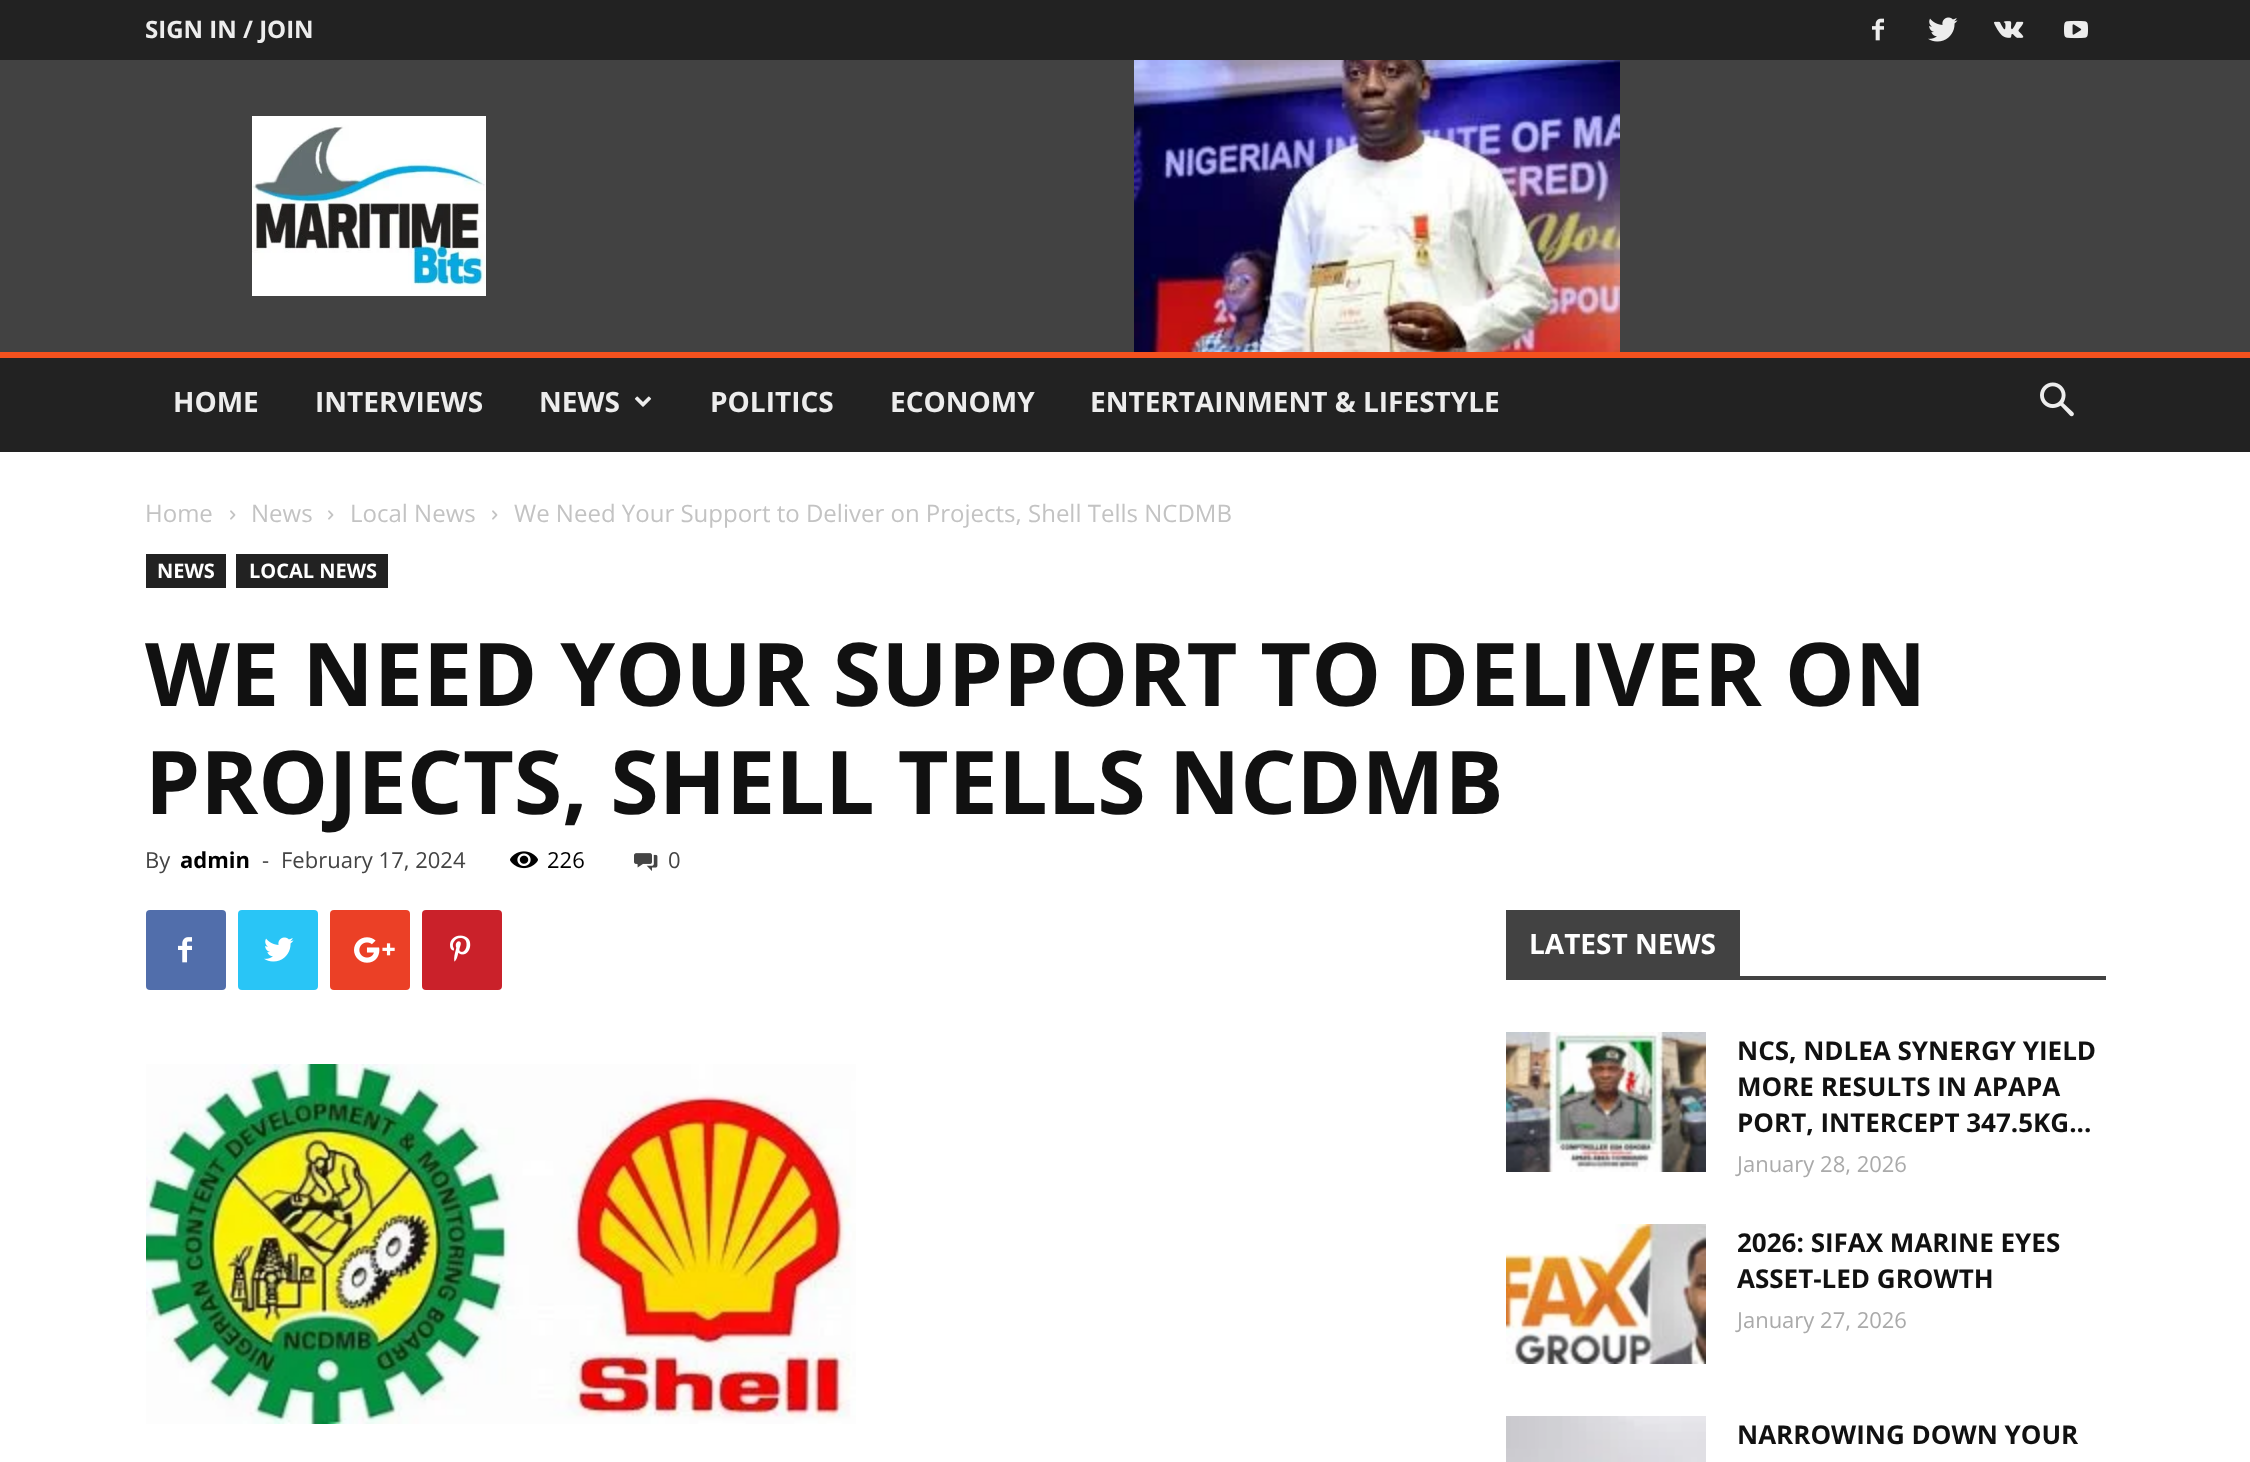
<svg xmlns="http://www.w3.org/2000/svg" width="2250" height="1462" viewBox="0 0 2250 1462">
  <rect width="100%" height="100%" fill="#ffffff"/>
  <rect x="0" y="0" width="2250" height="60" fill="#222222"/>
  <text x="145" y="38" font-family="Open Sans" font-size="24" font-weight="bold" fill="#ededed">SIGN IN / JOIN</text>
  <image x="1872" y="18" width="12" height="23" href="img1.png"/>
  <image x="1928" y="17" width="30" height="25" href="img2.png"/>
  <image x="1994" y="21" width="30" height="17" href="img3.png"/>
  <image x="2064" y="20" width="24" height="19" href="img4.png"/>
  <rect x="0" y="60" width="2250" height="292" fill="#424242"/>
  <image x="252" y="116" width="234" height="180" href="img5.png"/>
  <image x="1134" y="60" width="486" height="292" href="img6.png"/>
  <rect x="0" y="358" width="2250" height="94" fill="#222222"/>
  <rect x="0" y="352" width="2250" height="6" fill="#f4511e"/>
  <text x="173" y="412" font-family="Open Sans" font-size="28" font-weight="bold" fill="#ededed">HOME</text>
  <text x="315" y="412" font-family="Open Sans" font-size="28" font-weight="bold" fill="#ededed">INTERVIEWS</text>
  <text x="539" y="412" font-family="Open Sans" font-size="28" font-weight="bold" fill="#ededed">NEWS</text>
  <image x="634" y="396" width="18" height="11" href="img7.png"/>
  <text x="710" y="412" font-family="Open Sans" font-size="28" font-weight="bold" fill="#ededed">POLITICS</text>
  <text x="890" y="412" font-family="Open Sans" font-size="28" font-weight="bold" fill="#ededed">ECONOMY</text>
  <text x="1090" y="412" font-family="Open Sans" font-size="28" font-weight="bold" fill="#ededed">ENTERTAINMENT &amp; LIFESTYLE</text>
  <image x="2040" y="382" width="34" height="35" href="img8.png"/>
  <text x="145" y="522" font-family="Open Sans" font-size="24" fill="#c3c3c3">Home</text>
  <image x="230" y="510" width="6" height="10" href="img9.png"/>
  <text x="251" y="522" font-family="Open Sans" font-size="24" fill="#c3c3c3">News</text>
  <image x="328" y="510" width="6" height="10" href="img9.png"/>
  <text x="350" y="522" font-family="Open Sans" font-size="24" fill="#c3c3c3">Local News</text>
  <image x="492" y="510" width="6" height="10" href="img9.png"/>
  <text x="514" y="522" font-family="Open Sans" font-size="24" fill="#c3c3c3">We Need Your Support to Deliver on Projects, Shell Tells NCDMB</text>
  <rect x="146" y="554" width="80" height="34" fill="#222222"/>
  <text x="157" y="578" font-family="Open Sans" font-size="20" font-weight="bold" fill="#ffffff">NEWS</text>
  <rect x="236" y="554" width="152" height="34" fill="#222222"/>
  <text x="249" y="578" font-family="Open Sans" font-size="20" font-weight="bold" fill="#ffffff">LOCAL NEWS</text>
  <text x="145" y="706" font-family="Open Sans" font-size="88" font-weight="bold" fill="#111111">WE NEED YOUR SUPPORT TO DELIVER ON</text>
  <text x="145" y="814" font-family="Open Sans" font-size="88" font-weight="bold" fill="#111111">PROJECTS, SHELL TELLS NCDMB</text>
  <text x="145" y="868" font-family="Open Sans" font-size="22" fill="#444444">By</text>
  <text x="180" y="868" font-family="Open Sans" font-size="22" font-weight="bold" fill="#000000">admin</text>
  <text x="262" y="868" font-family="Open Sans" font-size="22" fill="#444444">-</text>
  <text x="281" y="868" font-family="Open Sans" font-size="22" fill="#444444">February 17, 2024</text>
  <image x="510" y="851" width="28" height="18" href="img10.png"/>
  <text x="547" y="868" font-family="Open Sans" font-size="22" fill="#000000">226</text>
  <image x="634" y="853" width="24" height="18" href="img11.png"/>
  <text x="668" y="868" font-family="Open Sans" font-size="22" fill="#444444">0</text>
  <rect x="146" y="910" width="80" height="80" rx="4" fill="#516eab"/>
  <image x="178" y="937" width="14" height="26" href="img12.png"/>
  <rect x="238" y="910" width="80" height="80" rx="4" fill="#29c5f6"/>
  <image x="264" y="937" width="30" height="25" href="img13.png"/>
  <rect x="330" y="910" width="80" height="80" rx="4" fill="#eb4026"/>
  <image x="354" y="937" width="41" height="26" href="img14.png"/>
  <rect x="422" y="910" width="80" height="80" rx="4" fill="#ca212a"/>
  <image x="450" y="935" width="21" height="27" href="img15.png"/>
  <image x="146" y="1064" width="710" height="360" href="img16.png"/>
  <rect x="1506" y="976" width="600" height="4" fill="#424242"/>
  <rect x="1506" y="910" width="234" height="66" fill="#424242"/>
  <text x="1529" y="954" font-family="Open Sans" font-size="28" font-weight="bold" fill="#ffffff">LATEST NEWS</text>
  <image x="1506" y="1032" width="200" height="140" href="img17.png"/>
  <text x="1737" y="1060" font-family="Open Sans" font-size="26" font-weight="bold" fill="#111111">NCS, NDLEA SYNERGY YIELD</text>
  <text x="1737" y="1096" font-family="Open Sans" font-size="26" font-weight="bold" fill="#111111">MORE RESULTS IN APAPA</text>
  <text x="1737" y="1132" font-family="Open Sans" font-size="26" font-weight="bold" fill="#111111">PORT, INTERCEPT 347.5KG...</text>
  <text x="1737" y="1172" font-family="Open Sans" font-size="22" fill="#aaaaaa">January 28, 2026</text>
  <image x="1506" y="1224" width="200" height="140" href="img18.png"/>
  <text x="1737" y="1252" font-family="Open Sans" font-size="26" font-weight="bold" fill="#111111">2026: SIFAX MARINE EYES</text>
  <text x="1737" y="1288" font-family="Open Sans" font-size="26" font-weight="bold" fill="#111111">ASSET-LED GROWTH</text>
  <text x="1737" y="1328" font-family="Open Sans" font-size="22" fill="#aaaaaa">January 27, 2026</text>
  <image x="1506" y="1416" width="200" height="46" href="img19.png"/>
  <text x="1737" y="1444" font-family="Open Sans" font-size="26" font-weight="bold" fill="#111111">NARROWING DOWN YOUR</text>
</svg>
